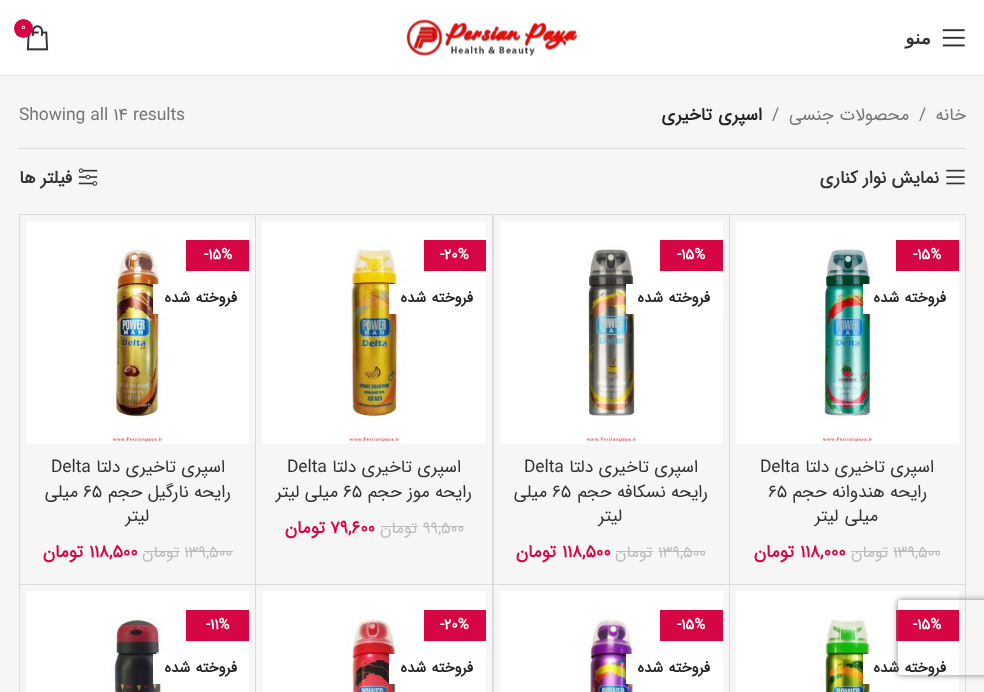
<svg xmlns="http://www.w3.org/2000/svg" width="984" height="692" viewBox="0 0 984 692">
  <defs>
    <clipPath id="clip1"><path d="M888 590H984V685H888ZM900.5 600H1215.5C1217 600 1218 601 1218 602.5V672.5C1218 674 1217 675 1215.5 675H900.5C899 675 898 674 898 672.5V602.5C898 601 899 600 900.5 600Z" clip-rule="evenodd"/></clipPath>
    <filter id="blur1" x="-50%" y="-200%" width="200%" height="500%"><feGaussianBlur stdDeviation="3"/></filter>
  </defs>
  <rect width="100%" height="100%" fill="#ffffff"/>
  <rect x="0" y="75" width="984" height="1" fill="#e6e6e6"/>
  <image x="406" y="19" width="172" height="38" href="img1.png"/>
  <image x="26" y="25" width="23" height="26" href="img2.png"/>
  <circle cx="23.5" cy="28.5" r="9.5" fill="#d60644"/>
  <text x="21" y="30" font-family="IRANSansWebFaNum" font-size="11" fill="#ffffff">0</text>
  <image x="942" y="29" width="23" height="18" href="img3.png"/>
  <text x="931" y="44" font-family="DejaVu Sans" font-size="19" font-weight="bold" letter-spacing="-0.1" direction="rtl" fill="#333333">منو</text>
  <rect x="0" y="76" width="984" height="616" fill="#f6f6f6"/>
  <rect x="19" y="148" width="947" height="1" fill="#dcdcdc"/>
  <text x="966" y="120" font-family="IRANSansWebFaNum" font-size="17.5" letter-spacing="-0.1" direction="rtl" fill="#767676">خانه</text>
  <text x="919" y="120" font-family="IRANSansWebFaNum" font-size="17.5" letter-spacing="-0.1" fill="#767676">/</text>
  <text x="909" y="120" word-spacing="1" font-family="IRANSansWebFaNum" font-size="17.5" letter-spacing="-0.1" direction="rtl" fill="#767676">محصولات جنسی</text>
  <text x="772" y="120" font-family="IRANSansWebFaNum" font-size="17.5" letter-spacing="-0.1" fill="#767676">/</text>
  <text x="762" y="120" word-spacing="1" font-family="IRANSansWebFaNum" font-size="17.5" font-weight="bold" letter-spacing="-0.1" direction="rtl" fill="#242424">اسپری تاخیری</text>
  <text x="19" y="120" font-family="IRANSansWebFaNum" font-size="17.5" letter-spacing="-0.1" fill="#767676">Showing all 14 results</text>
  <image x="946" y="169" width="19" height="16" href="img4.png"/>
  <text x="939" y="183" font-family="IRANSansWebFaNum" font-size="17.5" font-weight="bold" letter-spacing="-0.1" direction="rtl" fill="#333333">نمایش نوار کناری</text>
  <image x="78" y="168" width="20" height="18" href="img5.png"/>
  <text x="72" y="183" font-family="IRANSansWebFaNum" font-size="17.5" font-weight="bold" letter-spacing="-0.1" direction="rtl" fill="#333333">فیلتر ها</text>
  <rect x="965" y="214" width="1" height="478" fill="#dcdcdc"/>
  <path d="M729 214H965V215H730Z" fill="#dcdcdc"/>
  <path d="M965 585H729L730 584H965Z" fill="#dcdcdc"/>
  <path d="M729 585V214L730 215V584Z" fill="#000000" fill-opacity="0.11"/>
  <image x="736" y="221" width="223" height="223" href="img6.png"/>
  <rect x="896" y="240" width="63" height="31" fill="#d60644"/>
  <text x="913" y="259" font-family="IRANSansWebFaNum" font-size="15" font-weight="bold" letter-spacing="-0.1" fill="#ffffff">-15%</text>
  <rect x="863" y="284" width="16" height="30" fill="#ffffff"/>
  <text x="946" y="302" word-spacing="1" font-family="IRANSansWebFaNum" font-size="15" font-weight="bold" letter-spacing="-0.1" direction="rtl" fill="#242424">فروخته شده</text>
  <text x="934" y="472" font-family="IRANSansWebFaNum" font-size="17.5" letter-spacing="-0.1" direction="rtl" fill="#333333">اسپری تاخیری دلتا</text>
  <text x="760" y="472" font-family="IRANSansWebFaNum" font-size="17.5" letter-spacing="-0.1" fill="#333333">Delta</text>
  <text x="927" y="497" font-family="IRANSansWebFaNum" font-size="17.5" letter-spacing="-0.1" direction="rtl" fill="#333333">رایحه هندوانه حجم</text>
  <text x="768" y="497" font-family="IRANSansWebFaNum" font-size="17.5" letter-spacing="-0.1" fill="#333333">65</text>
  <text x="878" y="521" word-spacing="1" font-family="IRANSansWebFaNum" font-size="17.5" letter-spacing="-0.1" direction="rtl" fill="#333333">میلی لیتر</text>
  <text x="893" y="557" font-family="IRANSansWebFaNum" font-size="16" letter-spacing="-0.1" fill="#bbbbbb">139,500</text>
  <rect x="893" y="551" width="47" height="1" fill="#bbbbbb"/>
  <text x="888" y="557" font-family="IRANSansWebFaNum" font-size="16" letter-spacing="-0.1" direction="rtl" fill="#bbbbbb">تومان</text>
  <rect x="851" y="551" width="37" height="1" fill="#bbbbbb"/>
  <text x="800" y="557" font-family="IRANSansWebFaNum" font-size="17.5" font-weight="bold" letter-spacing="-0.1" fill="#d60644">118,000</text>
  <text x="794" y="557" font-family="IRANSansWebFaNum" font-size="17.5" font-weight="bold" letter-spacing="-0.1" direction="rtl" fill="#d60644">تومان</text>
  <path d="M492 214H729V215H494Z" fill="#dcdcdc"/>
  <path d="M729 585H492L494 584H729Z" fill="#dcdcdc"/>
  <path d="M492 585V214L494 215V584Z" fill="#000000" fill-opacity="0.11"/>
  <image x="500" y="221" width="223" height="223" href="img7.png"/>
  <rect x="660" y="240" width="63" height="31" fill="#d60644"/>
  <text x="677" y="259" font-family="IRANSansWebFaNum" font-size="15" font-weight="bold" letter-spacing="-0.1" fill="#ffffff">-15%</text>
  <rect x="626" y="284" width="97" height="30" fill="#ffffff"/>
  <text x="710" y="302" word-spacing="1" font-family="IRANSansWebFaNum" font-size="15" font-weight="bold" letter-spacing="-0.1" direction="rtl" fill="#242424">فروخته شده</text>
  <text x="698" y="472" font-family="IRANSansWebFaNum" font-size="17.5" letter-spacing="-0.1" direction="rtl" fill="#333333">اسپری تاخیری دلتا</text>
  <text x="524" y="472" font-family="IRANSansWebFaNum" font-size="17.5" letter-spacing="-0.1" fill="#333333">Delta</text>
  <text x="708" y="497" font-family="IRANSansWebFaNum" font-size="17.5" letter-spacing="-0.1" direction="rtl" fill="#333333">رایحه نسکافه حجم</text>
  <text x="552" y="497" font-family="IRANSansWebFaNum" font-size="17.5" letter-spacing="-0.1" fill="#333333">65</text>
  <text x="547" y="497" font-family="IRANSansWebFaNum" font-size="17.5" letter-spacing="-0.1" direction="rtl" fill="#333333">میلی</text>
  <text x="622" y="521" font-family="IRANSansWebFaNum" font-size="17.5" letter-spacing="-0.1" direction="rtl" fill="#333333">لیتر</text>
  <text x="658" y="557" font-family="IRANSansWebFaNum" font-size="16" letter-spacing="-0.1" fill="#bbbbbb">139,500</text>
  <rect x="658" y="551" width="47" height="1" fill="#bbbbbb"/>
  <text x="652" y="557" font-family="IRANSansWebFaNum" font-size="16" letter-spacing="-0.1" direction="rtl" fill="#bbbbbb">تومان</text>
  <rect x="616" y="551" width="37" height="1" fill="#bbbbbb"/>
  <text x="562" y="557" font-family="IRANSansWebFaNum" font-size="17.5" font-weight="bold" letter-spacing="-0.1" fill="#d60644">118,500</text>
  <text x="556" y="557" font-family="IRANSansWebFaNum" font-size="17.5" font-weight="bold" letter-spacing="-0.1" direction="rtl" fill="#d60644">تومان</text>
  <path d="M255 214H492V215H256Z" fill="#dcdcdc"/>
  <path d="M492 585H255L256 584H492Z" fill="#dcdcdc"/>
  <path d="M255 585V214L256 215V584Z" fill="#000000" fill-opacity="0.11"/>
  <image x="262" y="221" width="224" height="223" href="img8.png"/>
  <rect x="424" y="240" width="62" height="31" fill="#d60644"/>
  <text x="440" y="259" font-family="IRANSansWebFaNum" font-size="15" font-weight="bold" letter-spacing="-0.1" fill="#ffffff">-20%</text>
  <rect x="389" y="284" width="18" height="30" fill="#ffffff"/>
  <text x="473" y="302" word-spacing="1" font-family="IRANSansWebFaNum" font-size="15" font-weight="bold" letter-spacing="-0.1" direction="rtl" fill="#242424">فروخته شده</text>
  <text x="461" y="472" font-family="IRANSansWebFaNum" font-size="17.5" letter-spacing="-0.1" direction="rtl" fill="#333333">اسپری تاخیری دلتا</text>
  <text x="287" y="472" font-family="IRANSansWebFaNum" font-size="17.5" letter-spacing="-0.1" fill="#333333">Delta</text>
  <text x="472" y="497" font-family="IRANSansWebFaNum" font-size="17.5" letter-spacing="-0.1" direction="rtl" fill="#333333">رایحه موز حجم</text>
  <text x="343" y="497" font-family="IRANSansWebFaNum" font-size="17.5" letter-spacing="-0.1" fill="#333333">65</text>
  <text x="338" y="497" font-family="IRANSansWebFaNum" font-size="17.5" letter-spacing="-0.1" direction="rtl" fill="#333333">میلی لیتر</text>
  <text x="423" y="533" font-family="IRANSansWebFaNum" font-size="16" letter-spacing="-0.1" fill="#bbbbbb">99,500</text>
  <rect x="423" y="526" width="41" height="1" fill="#bbbbbb"/>
  <text x="417" y="533" font-family="IRANSansWebFaNum" font-size="16" letter-spacing="-0.1" direction="rtl" fill="#bbbbbb">تومان</text>
  <rect x="381" y="526" width="37" height="1" fill="#bbbbbb"/>
  <text x="330" y="533" font-family="IRANSansWebFaNum" font-size="17.5" font-weight="bold" letter-spacing="-0.1" fill="#d60644">79,600</text>
  <text x="325" y="533" font-family="IRANSansWebFaNum" font-size="17.5" font-weight="bold" letter-spacing="-0.1" direction="rtl" fill="#d60644">تومان</text>
  <path d="M19 214H255V215H20Z" fill="#dcdcdc"/>
  <path d="M255 585H19L20 584H255Z" fill="#dcdcdc"/>
  <path d="M19 585V214L20 215V584Z" fill="#000000" fill-opacity="0.11"/>
  <image x="26" y="221" width="223" height="223" href="img9.png"/>
  <rect x="186" y="240" width="63" height="31" fill="#d60644"/>
  <text x="204" y="259" font-family="IRANSansWebFaNum" font-size="15" font-weight="bold" letter-spacing="-0.1" fill="#ffffff">-15%</text>
  <rect x="153" y="284" width="16" height="30" fill="#ffffff"/>
  <text x="237" y="302" word-spacing="1" font-family="IRANSansWebFaNum" font-size="15" font-weight="bold" letter-spacing="-0.1" direction="rtl" fill="#242424">فروخته شده</text>
  <text x="225" y="472" font-family="IRANSansWebFaNum" font-size="17.5" letter-spacing="-0.1" direction="rtl" fill="#333333">اسپری تاخیری دلتا</text>
  <text x="51" y="472" font-family="IRANSansWebFaNum" font-size="17.5" letter-spacing="-0.1" fill="#333333">Delta</text>
  <text x="231" y="497" font-family="IRANSansWebFaNum" font-size="17.5" letter-spacing="-0.1" direction="rtl" fill="#333333">رایحه نارگیل حجم</text>
  <text x="83" y="497" font-family="IRANSansWebFaNum" font-size="17.5" letter-spacing="-0.1" fill="#333333">65</text>
  <text x="78" y="497" font-family="IRANSansWebFaNum" font-size="17.5" letter-spacing="-0.1" direction="rtl" fill="#333333">میلی</text>
  <text x="149" y="521" font-family="IRANSansWebFaNum" font-size="17.5" letter-spacing="-0.1" direction="rtl" fill="#333333">لیتر</text>
  <text x="184" y="557" font-family="IRANSansWebFaNum" font-size="16" letter-spacing="-0.1" fill="#bbbbbb">139,500</text>
  <rect x="185" y="551" width="48" height="1" fill="#bbbbbb"/>
  <text x="179" y="557" font-family="IRANSansWebFaNum" font-size="16" letter-spacing="-0.1" direction="rtl" fill="#bbbbbb">تومان</text>
  <rect x="144" y="551" width="36" height="1" fill="#bbbbbb"/>
  <text x="89" y="557" font-family="IRANSansWebFaNum" font-size="17.5" font-weight="bold" letter-spacing="-0.1" fill="#d60644">118,500</text>
  <text x="83" y="557" font-family="IRANSansWebFaNum" font-size="17.5" font-weight="bold" letter-spacing="-0.1" direction="rtl" fill="#d60644">تومان</text>
  <path d="M729 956V585H730V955Z" fill="#dcdcdc"/>
  <image x="736" y="591" width="223" height="101" href="img10.png"/>
  <rect x="896" y="610" width="63" height="31" fill="#d60644"/>
  <text x="913" y="629" font-family="IRANSansWebFaNum" font-size="15" font-weight="bold" letter-spacing="-0.1" fill="#ffffff">-15%</text>
  <rect x="863" y="654" width="16" height="30" fill="#ffffff"/>
  <text x="946" y="672" word-spacing="1" font-family="IRANSansWebFaNum" font-size="15" font-weight="bold" letter-spacing="-0.1" direction="rtl" fill="#242424">فروخته شده</text>
  <path d="M492 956V585H494V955Z" fill="#dcdcdc"/>
  <image x="500" y="591" width="223" height="101" href="img11.png"/>
  <rect x="660" y="610" width="63" height="31" fill="#d60644"/>
  <text x="677" y="629" font-family="IRANSansWebFaNum" font-size="15" font-weight="bold" letter-spacing="-0.1" fill="#ffffff">-15%</text>
  <rect x="626" y="654" width="17" height="30" fill="#ffffff"/>
  <text x="710" y="672" word-spacing="1" font-family="IRANSansWebFaNum" font-size="15" font-weight="bold" letter-spacing="-0.1" direction="rtl" fill="#242424">فروخته شده</text>
  <path d="M255 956V585H256V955Z" fill="#dcdcdc"/>
  <image x="263" y="591" width="223" height="101" href="img12.png"/>
  <rect x="424" y="610" width="62" height="31" fill="#d60644"/>
  <text x="440" y="629" font-family="IRANSansWebFaNum" font-size="15" font-weight="bold" letter-spacing="-0.1" fill="#ffffff">-20%</text>
  <rect x="389" y="654" width="17" height="30" fill="#ffffff"/>
  <text x="473" y="672" word-spacing="1" font-family="IRANSansWebFaNum" font-size="15" font-weight="bold" letter-spacing="-0.1" direction="rtl" fill="#242424">فروخته شده</text>
  <path d="M19 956V585H20V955Z" fill="#dcdcdc"/>
  <image x="26" y="591" width="223" height="101" href="img13.png"/>
  <rect x="186" y="610" width="63" height="31" fill="#d60644"/>
  <text x="206" y="629" font-family="IRANSansWebFaNum" font-size="15" font-weight="bold" letter-spacing="-0.1" fill="#ffffff">-11%</text>
  <rect x="153" y="654" width="10" height="30" fill="#ffffff"/>
  <text x="237" y="672" word-spacing="1" font-family="IRANSansWebFaNum" font-size="15" font-weight="bold" letter-spacing="-0.1" direction="rtl" fill="#242424">فروخته شده</text>
  <g clip-path="url(#clip1)">
    <rect x="898" y="600" width="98" height="75" rx="2.5" fill="#808080" filter="url(#blur1)"/>
  </g>
</svg>
